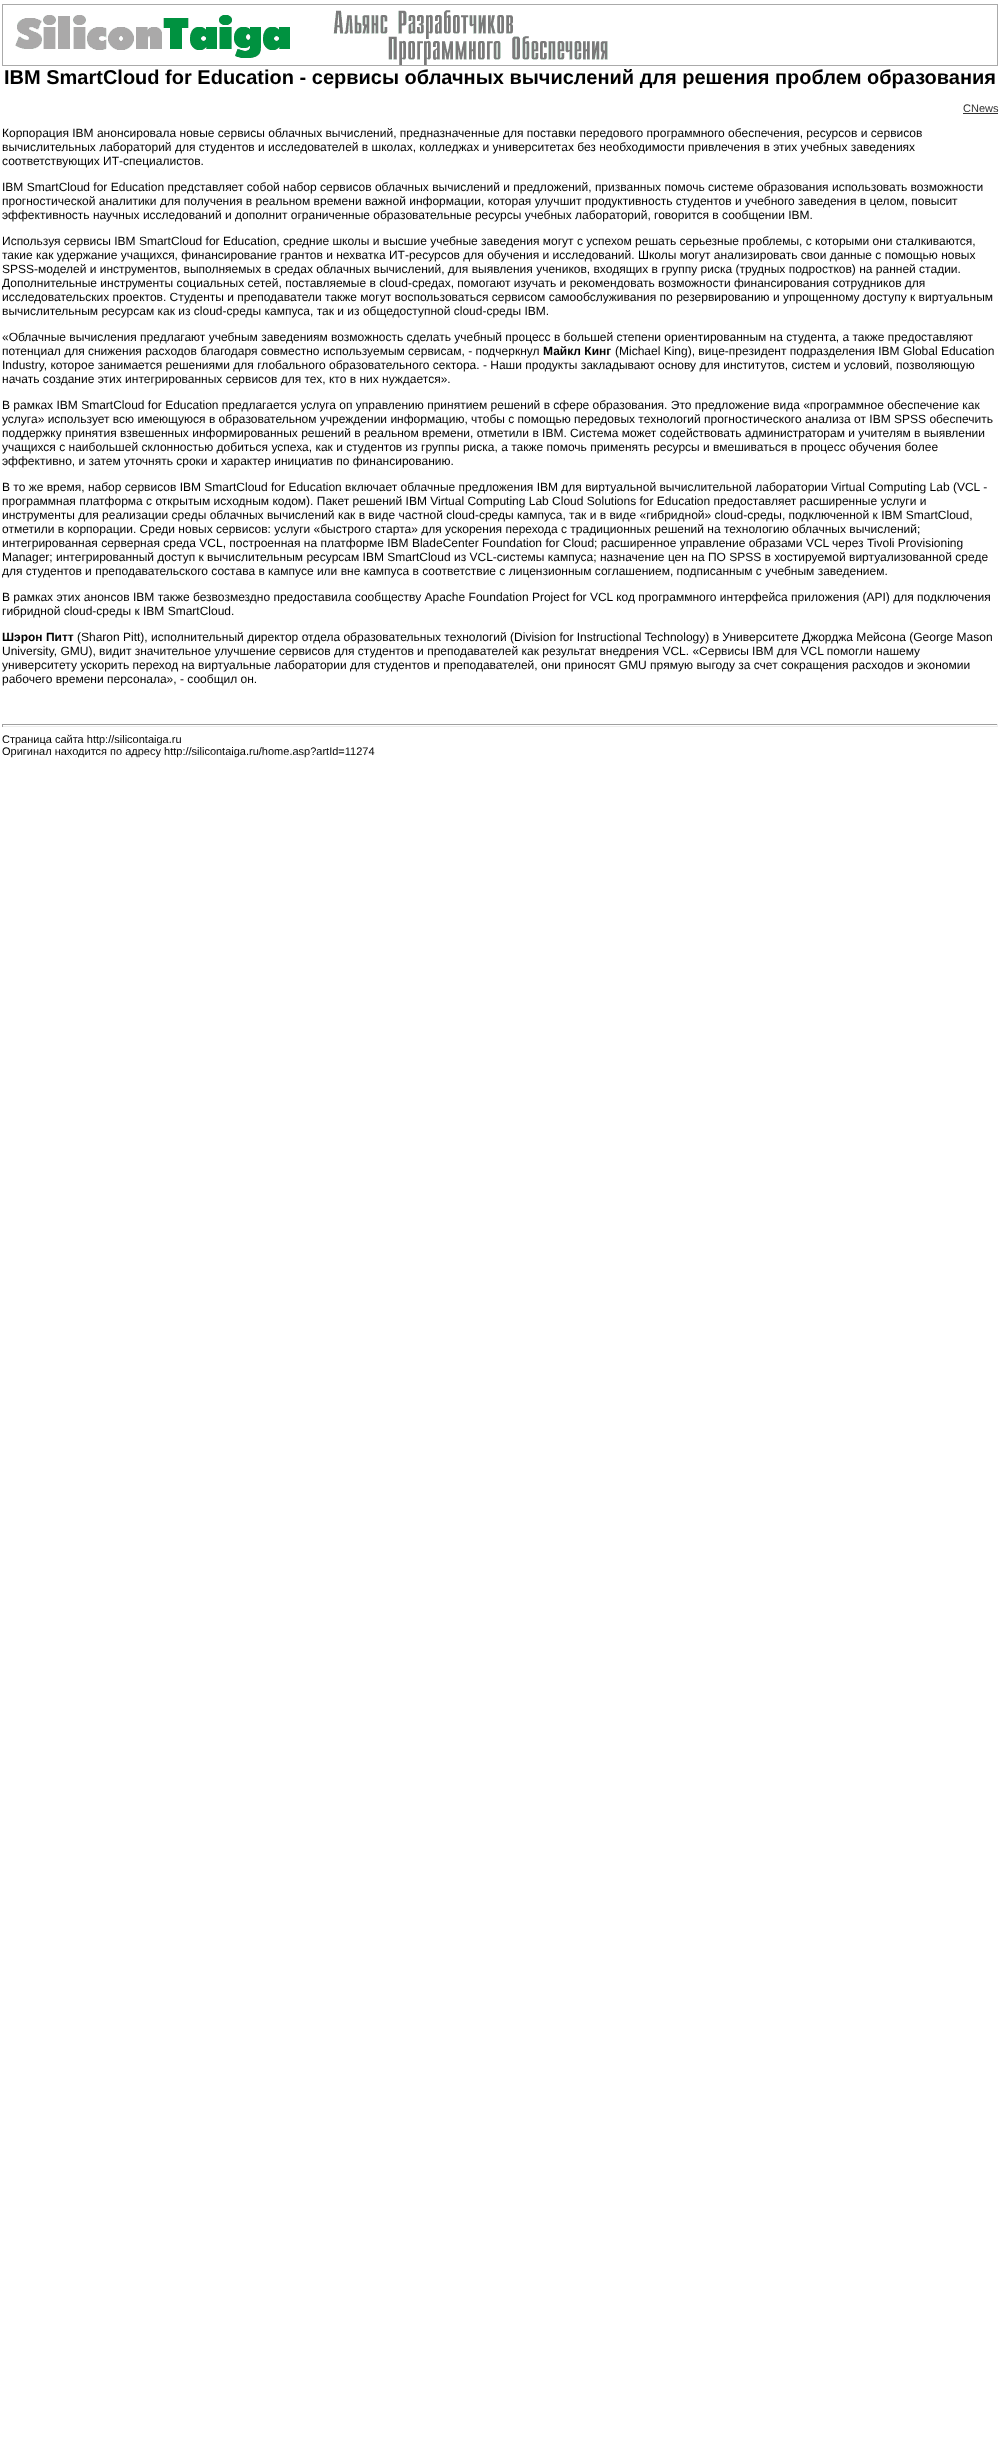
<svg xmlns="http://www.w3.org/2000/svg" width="1000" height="2441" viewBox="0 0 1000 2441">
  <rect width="100%" height="100%" fill="#ffffff"/>
  <rect x="2.5" y="4.5" width="995" height="61" fill="none" stroke="#aaaaaa"/>
  <image x="15" y="10" width="593" height="55" href="img1.png"/>
  <text x="4" y="84" font-family="Liberation Sans" font-size="20" font-weight="bold" fill="#000000">IBM SmartCloud for Education - сервисы облачных вычислений для решения проблем образования</text>
  <text x="963" y="112" font-family="Liberation Sans" font-size="11" fill="#303030">CNews</text>
  <rect x="963" y="113" width="35" height="1" fill="#303030"/>
  <text x="2" y="137" font-family="Liberation Sans" font-size="12" fill="#000000">Корпорация IBM анонсировала новые сервисы облачных вычислений, предназначенные для поставки передового программного обеспечения, ресурсов и сервисов</text>
  <text x="2" y="151" font-family="Liberation Sans" font-size="12" fill="#000000">вычислительных лабораторий для студентов и исследователей в школах, колледжах и университетах без необходимости привлечения в этих учебных заведениях</text>
  <text x="2" y="165" font-family="Liberation Sans" font-size="12" fill="#000000">соответствующих ИТ-специалистов.</text>
  <text x="2" y="191" font-family="Liberation Sans" font-size="12" fill="#000000">IBM SmartCloud for Education представляет собой набор сервисов облачных вычислений и предложений, призванных помочь системе образования использовать возможности</text>
  <text x="2" y="205" font-family="Liberation Sans" font-size="12" fill="#000000">прогностической аналитики для получения в реальном времени важной информации, которая улучшит продуктивность студентов и учебного заведения в целом, повысит</text>
  <text x="2" y="219" font-family="Liberation Sans" font-size="12" fill="#000000">эффективность научных исследований и дополнит ограниченные образовательные ресурсы учебных лабораторий, говорится в сообщении IBM.</text>
  <text x="2" y="245" font-family="Liberation Sans" font-size="12" fill="#000000">Используя сервисы IBM SmartCloud for Education, средние школы и высшие учебные заведения могут с успехом решать серьезные проблемы, с которыми они сталкиваются,</text>
  <text x="2" y="259" font-family="Liberation Sans" font-size="12" fill="#000000">такие как удержание учащихся, финансирование грантов и нехватка ИТ-ресурсов для обучения и исследований. Школы могут анализировать свои данные с помощью новых</text>
  <text x="2" y="273" font-family="Liberation Sans" font-size="12" fill="#000000">SPSS-моделей и инструментов, выполняемых в средах облачных вычислений, для выявления учеников, входящих в группу риска (трудных подростков) на ранней стадии.</text>
  <text x="2" y="287" font-family="Liberation Sans" font-size="12" fill="#000000">Дополнительные инструменты социальных сетей, поставляемые в cloud-средах, помогают изучать и рекомендовать возможности финансирования сотрудников для</text>
  <text x="2" y="301" font-family="Liberation Sans" font-size="12" fill="#000000">исследовательских проектов. Студенты и преподаватели также могут воспользоваться сервисом самообслуживания по резервированию и упрощенному доступу к виртуальным</text>
  <text x="2" y="315" font-family="Liberation Sans" font-size="12" fill="#000000">вычислительным ресурсам как из cloud-среды кампуса, так и из общедоступной cloud-среды IBM.</text>
  <text x="2" y="341" font-family="Liberation Sans" font-size="12" fill="#000000">«Облачные вычисления предлагают учебным заведениям возможность сделать учебный процесс в большей степени ориентированным на студента, а также предоставляют</text>
  <text x="2" y="355" font-family="Liberation Sans" font-size="12" fill="#000000">потенциал для снижения расходов благодаря совместно используемым сервисам, - подчеркнул</text>
  <text x="543" y="355" font-family="Liberation Sans" font-size="12" font-weight="bold" fill="#000000">Майкл Кинг</text>
  <text x="615" y="355" font-family="Liberation Sans" font-size="12" fill="#000000">(Michael King), вице-президент подразделения IBM Global Education</text>
  <text x="2" y="369" font-family="Liberation Sans" font-size="12" fill="#000000">Industry, которое занимается решениями для глобального образовательного сектора. - Наши продукты закладывают основу для институтов, систем и условий, позволяющую</text>
  <text x="2" y="383" font-family="Liberation Sans" font-size="12" fill="#000000">начать создание этих интегрированных сервисов для тех, кто в них нуждается».</text>
  <text x="2" y="409" font-family="Liberation Sans" font-size="12" fill="#000000">В рамках IBM SmartCloud for Education предлагается услуга оп управлению принятием решений в сфере образования. Это предложение вида «программное обеспечение как</text>
  <text x="2" y="423" font-family="Liberation Sans" font-size="12" fill="#000000">услуга» использует всю имеющуюся в образовательном учреждении информацию, чтобы с помощью передовых технологий прогностического анализа от IBM SPSS обеспечить</text>
  <text x="2" y="437" font-family="Liberation Sans" font-size="12" fill="#000000">поддержку принятия взвешенных информированных решений в реальном времени, отметили в IBM. Система может содействовать администраторам и учителям в выявлении</text>
  <text x="2" y="451" font-family="Liberation Sans" font-size="12" fill="#000000">учащихся с наибольшей склонностью добиться успеха, как и студентов из группы риска, а также помочь применять ресурсы и вмешиваться в процесс обучения более</text>
  <text x="2" y="465" font-family="Liberation Sans" font-size="12" fill="#000000">эффективно, и затем уточнять сроки и характер инициатив по финансированию.</text>
  <text x="2" y="491" font-family="Liberation Sans" font-size="12" fill="#000000">В то же время, набор сервисов IBM SmartCloud for Education включает облачные предложения IBM для виртуальной вычислительной лаборатории Virtual Computing Lab (VCL -</text>
  <text x="2" y="505" font-family="Liberation Sans" font-size="12" fill="#000000">программная платформа с открытым исходным кодом). Пакет решений IBM Virtual Computing Lab Cloud Solutions for Education предоставляет расширенные услуги и</text>
  <text x="2" y="519" font-family="Liberation Sans" font-size="12" fill="#000000">инструменты для реализации среды облачных вычислений как в виде частной cloud-среды кампуса, так и в виде «гибридной» cloud-среды, подключенной к IBM SmartCloud,</text>
  <text x="2" y="533" font-family="Liberation Sans" font-size="12" fill="#000000">отметили в корпорации. Среди новых сервисов: услуги «быстрого старта» для ускорения перехода с традиционных решений на технологию облачных вычислений;</text>
  <text x="2" y="547" font-family="Liberation Sans" font-size="12" fill="#000000">интегрированная серверная среда VCL, построенная на платформе IBM BladeCenter Foundation for Cloud; расширенное управление образами VCL через Tivoli Provisioning</text>
  <text x="2" y="561" font-family="Liberation Sans" font-size="12" fill="#000000">Manager; интегрированный доступ к вычислительным ресурсам IBM SmartCloud из VCL-системы кампуса; назначение цен на ПО SPSS в хостируемой виртуализованной среде</text>
  <text x="2" y="575" font-family="Liberation Sans" font-size="12" fill="#000000">для студентов и преподавательского состава в кампусе или вне кампуса в соответствие с лицензионным соглашением, подписанным с учебным заведением.</text>
  <text x="2" y="601" font-family="Liberation Sans" font-size="12" fill="#000000">В рамках этих анонсов IBM также безвозмездно предоставила сообществу Apache Foundation Project for VCL код программного интерфейса приложения (API) для подключения</text>
  <text x="2" y="615" font-family="Liberation Sans" font-size="12" fill="#000000">гибридной cloud-среды к IBM SmartCloud.</text>
  <text x="2" y="641" font-family="Liberation Sans" font-size="12" font-weight="bold" fill="#000000">Шэрон Питт</text>
  <text x="77" y="641" font-family="Liberation Sans" font-size="12" fill="#000000">(Sharon Pitt), исполнительный директор отдела образовательных технологий (Division for Instructional Technology) в Университете Джорджа Мейсона (George Mason</text>
  <text x="2" y="655" font-family="Liberation Sans" font-size="12" fill="#000000">University, GMU), видит значительное улучшение сервисов для студентов и преподавателей как результат внедрения VCL. «Сервисы IBM для VCL помогли нашему</text>
  <text x="2" y="669" font-family="Liberation Sans" font-size="12" fill="#000000">университету ускорить переход на виртуальные лаборатории для студентов и преподавателей, они приносят GMU прямую выгоду за счет сокращения расходов и экономии</text>
  <text x="2" y="683" font-family="Liberation Sans" font-size="12" fill="#000000">рабочего времени персонала», - сообщил он.</text>
  <rect x="2" y="724" width="996" height="1" fill="#9f9f9f"/>
  <rect x="997" y="724" width="1" height="3" fill="#eeeeee"/>
  <rect x="2" y="726" width="996" height="1" fill="#eeeeee"/>
  <rect x="2" y="724" width="1" height="3" fill="#9f9f9f"/>
  <text x="2" y="743" font-family="Liberation Sans" font-size="11" fill="#000000">Страница сайта http://silicontaiga.ru</text>
  <text x="2" y="755" font-family="Liberation Sans" font-size="11" fill="#000000">Оригинал находится по адресу http://silicontaiga.ru/home.asp?artId=11274</text>
</svg>
